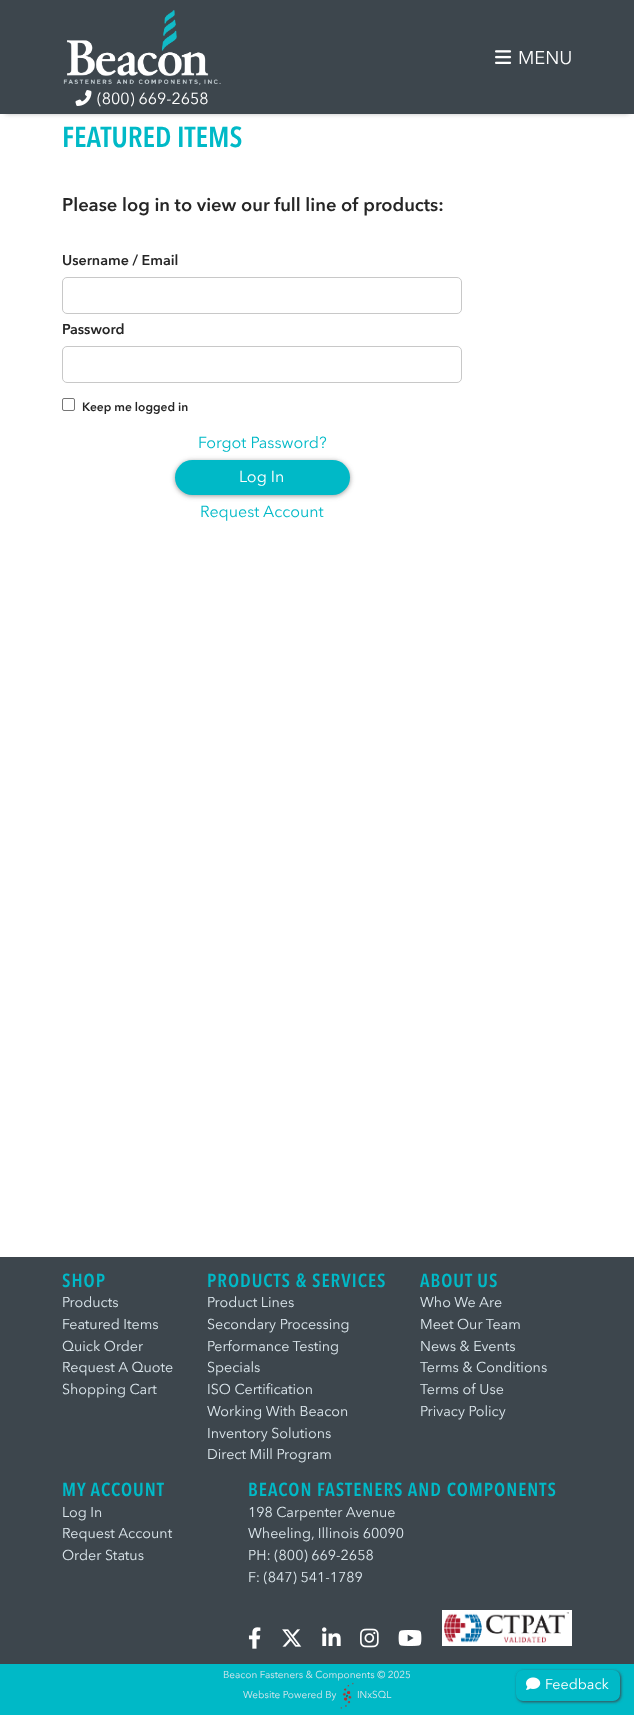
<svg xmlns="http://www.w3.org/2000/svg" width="634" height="1715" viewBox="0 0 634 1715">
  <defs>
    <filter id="blur1" x="-50%" y="-200%" width="200%" height="500%"><feGaussianBlur stdDeviation="2.5"/></filter>
    <filter id="blur2" x="-50%" y="-200%" width="200%" height="500%"><feGaussianBlur stdDeviation="1.5"/></filter>
  </defs>
  <rect width="100%" height="100%" fill="#ffffff"/>
  <rect x="5" y="10" width="624" height="104" fill="#818181" fill-opacity="0.5" filter="url(#blur1)"/>
  <rect x="0" y="0" width="634" height="114" fill="#3d464d"/>
  <image x="495" y="50" width="17" height="14" href="img1.png"/>
  <text x="518" y="64" font-family="Avenir Next" font-size="18.4" fill="#ffffff">MENU</text>
  <image x="63" y="10" width="158" height="75" href="img2.png"/>
  <image x="75" y="90" width="17" height="16" href="img3.png"/>
  <text x="97" y="104" font-family="Avenir Next" font-size="16" fill="#ffffff">(800) 669-2658</text>
  <text x="62" y="147" font-family="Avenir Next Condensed" font-size="28.75" font-weight="600" fill="#00b9c7">FEATURED ITEMS</text>
  <text x="62" y="211" font-family="Avenir Next" font-size="18.4" font-weight="600" fill="#262626">Please log in to view our full line of products:</text>
  <text x="62" y="265" font-family="Avenir Next" font-size="14.25" font-weight="600" fill="#262626">Username / Email</text>
  <rect x="62.5" y="277.5" width="399" height="36" rx="4.5" fill="none" stroke="#c8c8c8"/>
  <text x="62" y="334" font-family="Avenir Next" font-size="14.25" font-weight="600" fill="#262626">Password</text>
  <rect x="62.5" y="346.5" width="399" height="36" rx="4.5" fill="none" stroke="#c8c8c8"/>
  <rect x="62.5" y="398.5" width="12" height="12" rx="1.5" fill="none" stroke="#767676"/>
  <text x="82" y="411" font-family="Avenir Next" font-size="12" font-weight="600" fill="#262626">Keep me logged in</text>
  <text x="198" y="448" font-family="Avenir Next" font-size="16" fill="#00b9c7">Forgot Password?</text>
  <rect x="175" y="461" width="175" height="35" rx="17.5" fill="#818181" fill-opacity="0.8" filter="url(#blur1)"/>
  <rect x="175" y="460" width="175" height="35" rx="17.5" fill="#00b9c7"/>
  <text x="239" y="482" font-family="Avenir Next" font-size="16" fill="#ffffff">Log In</text>
  <text x="200" y="517" font-family="Avenir Next" font-size="16" fill="#00b9c7">Request Account</text>
  <rect x="0" y="1257" width="634" height="407" fill="#3d464d"/>
  <text x="62" y="1287" font-family="Avenir Next Condensed" font-size="18.75" font-weight="600" letter-spacing="1" fill="#00b9c7">SHOP</text>
  <text x="62" y="1307" font-family="Avenir Next" font-size="14.25" fill="#dce7ed">Products</text>
  <text x="62" y="1329" font-family="Avenir Next" font-size="14.25" fill="#dce7ed">Featured Items</text>
  <text x="62" y="1351" font-family="Avenir Next" font-size="14.25" fill="#dce7ed">Quick Order</text>
  <text x="62" y="1372" font-family="Avenir Next" font-size="14.25" fill="#dce7ed">Request A Quote</text>
  <text x="62" y="1394" font-family="Avenir Next" font-size="14.25" fill="#dce7ed">Shopping Cart</text>
  <text x="207" y="1287" font-family="Avenir Next Condensed" font-size="18.75" font-weight="600" letter-spacing="1" fill="#00b9c7">PRODUCTS &amp; SERVICES</text>
  <text x="207" y="1307" font-family="Avenir Next" font-size="14.25" fill="#dce7ed">Product Lines</text>
  <text x="207" y="1329" font-family="Avenir Next" font-size="14.25" fill="#dce7ed">Secondary Processing</text>
  <text x="207" y="1351" font-family="Avenir Next" font-size="14.25" fill="#dce7ed">Performance Testing</text>
  <text x="207" y="1372" font-family="Avenir Next" font-size="14.25" fill="#dce7ed">Specials</text>
  <text x="207" y="1394" font-family="Avenir Next" font-size="14.25" fill="#dce7ed">ISO Certification</text>
  <text x="207" y="1416" font-family="Avenir Next" font-size="14.25" fill="#dce7ed">Working With Beacon</text>
  <text x="207" y="1438" font-family="Avenir Next" font-size="14.25" fill="#dce7ed">Inventory Solutions</text>
  <text x="207" y="1459" font-family="Avenir Next" font-size="14.25" fill="#dce7ed">Direct Mill Program</text>
  <text x="420" y="1287" font-family="Avenir Next Condensed" font-size="18.75" font-weight="600" letter-spacing="1" fill="#00b9c7">ABOUT US</text>
  <text x="420" y="1307" font-family="Avenir Next" font-size="14.25" fill="#dce7ed">Who We Are</text>
  <text x="420" y="1329" font-family="Avenir Next" font-size="14.25" fill="#dce7ed">Meet Our Team</text>
  <text x="420" y="1351" font-family="Avenir Next" font-size="14.25" fill="#dce7ed">News &amp; Events</text>
  <text x="420" y="1372" font-family="Avenir Next" font-size="14.25" fill="#dce7ed">Terms &amp; Conditions</text>
  <text x="420" y="1394" font-family="Avenir Next" font-size="14.25" fill="#dce7ed">Terms of Use</text>
  <text x="420" y="1416" font-family="Avenir Next" font-size="14.25" fill="#dce7ed">Privacy Policy</text>
  <text x="62" y="1496" font-family="Avenir Next Condensed" font-size="18.75" font-weight="600" letter-spacing="1" fill="#00b9c7">MY ACCOUNT</text>
  <text x="62" y="1517" font-family="Avenir Next" font-size="14.25" fill="#dce7ed">Log In</text>
  <text x="62" y="1538" font-family="Avenir Next" font-size="14.25" fill="#dce7ed">Request Account</text>
  <text x="62" y="1560" font-family="Avenir Next" font-size="14.25" fill="#dce7ed">Order Status</text>
  <text x="248" y="1496" font-family="Avenir Next Condensed" font-size="18.75" font-weight="600" letter-spacing="1" fill="#00b9c7">BEACON FASTENERS AND COMPONENTS</text>
  <text x="248" y="1517" font-family="Avenir Next" font-size="14.25" fill="#dce7ed">198 Carpenter Avenue</text>
  <text x="248" y="1538" font-family="Avenir Next" font-size="14.25" fill="#dce7ed">Wheeling, Illinois 60090</text>
  <text x="248" y="1560" font-family="Avenir Next" font-size="14.25" fill="#dce7ed">PH: (800) 669-2658</text>
  <text x="248" y="1582" font-family="Avenir Next" font-size="14.25" fill="#dce7ed">F: (847) 541-1789</text>
  <rect x="442" y="1610" width="130" height="36" fill="#ffffff"/>
  <image x="248" y="1627" width="13" height="22" href="img4.png"/>
  <image x="282" y="1629" width="20" height="18" href="img5.png"/>
  <image x="322" y="1627" width="19" height="19" href="img6.png"/>
  <image x="360" y="1628" width="19" height="20" href="img7.png"/>
  <image x="398" y="1630" width="24" height="16" href="img8.png"/>
  <image x="444" y="1612" width="125" height="31" href="img9.png"/>
  <rect x="0" y="1664" width="634" height="51" fill="#00b9c7"/>
  <text x="223" y="1678" font-family="Avenir Next" font-size="10" fill="#dce7ed">Beacon Fasteners &amp; Components © 2025</text>
  <text x="243" y="1698" font-family="Avenir Next" font-size="10" fill="#dce7ed">Website Powered By</text>
  <image x="340" y="1682" width="14" height="27" href="img10.png"/>
  <text x="357" y="1698" font-family="Avenir Next" font-size="10" fill="#dce7ed">INxSQL</text>
  <rect x="517" y="1671" width="104" height="31" rx="7" fill="#3d464d" filter="url(#blur2)"/>
  <rect x="516" y="1670" width="104" height="31" rx="7" fill="#00b9c7"/>
  <image x="526" y="1677" width="15" height="13" href="img11.png"/>
  <text x="545" y="1689" font-family="Avenir Next" font-size="14.25" fill="#ffffff">Feedback</text>
</svg>
